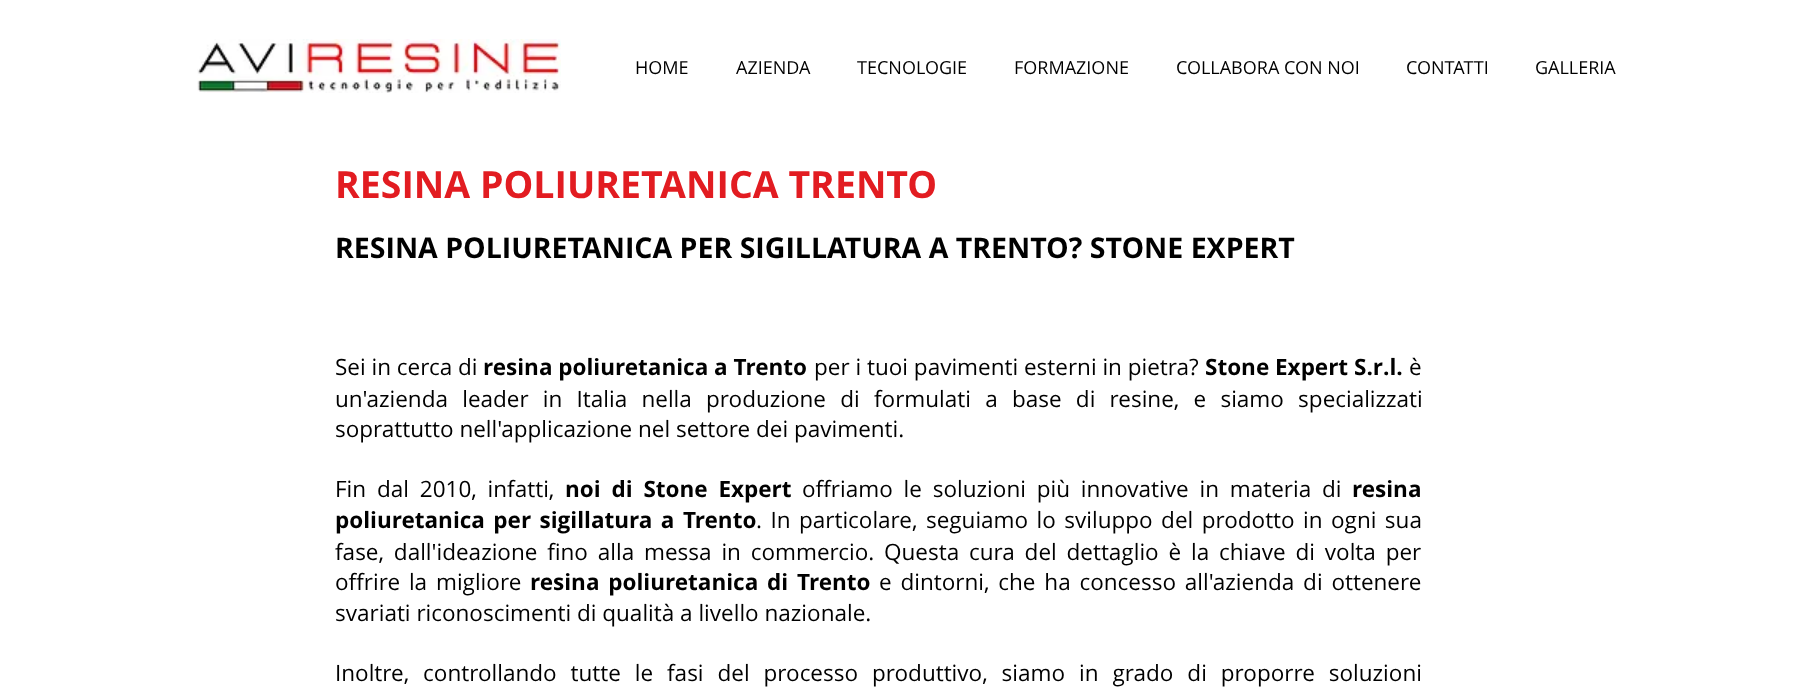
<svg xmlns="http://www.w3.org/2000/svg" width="1809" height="689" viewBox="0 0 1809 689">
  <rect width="100%" height="100%" fill="#ffffff"/>
  <image x="197" y="39" width="364" height="54" href="img1.png"/>
  <text x="635" y="74" font-family="Open Sans" font-size="18" fill="#000000">HOME</text>
  <text x="736" y="74" font-family="Open Sans" font-size="18" fill="#000000">AZIENDA</text>
  <text x="857" y="74" font-family="Open Sans" font-size="18" fill="#000000">TECNOLOGIE</text>
  <text x="1014" y="74" font-family="Open Sans" font-size="18" fill="#000000">FORMAZIONE</text>
  <text x="1176" y="74" font-family="Open Sans" font-size="18" fill="#000000">COLLABORA CON NOI</text>
  <text x="1406" y="74" font-family="Open Sans" font-size="18" fill="#000000">CONTATTI</text>
  <text x="1535" y="74" font-family="Open Sans" font-size="18" fill="#000000">GALLERIA</text>
  <text x="335" y="198" font-family="Open Sans" font-size="37.5" font-weight="bold" fill="#e21c21">RESINA POLIURETANICA TRENTO</text>
  <text x="335" y="258" font-family="Open Sans" font-size="28.5" font-weight="bold" fill="#000000">RESINA POLIURETANICA PER SIGILLATURA A TRENTO? STONE EXPERT</text>
  <text x="335" y="375" font-family="Open Sans" font-size="22.5" fill="#000000">Sei in cerca di</text>
  <text x="483" y="375" font-family="Open Sans" font-size="22.5" font-weight="bold" fill="#000000">resina poliuretanica a Trento</text>
  <text x="814" y="375" font-family="Open Sans" font-size="22.5" fill="#000000">per i tuoi pavimenti esterni in pietra?</text>
  <text x="1205" y="375" font-family="Open Sans" font-size="22.5" font-weight="bold" fill="#000000">Stone Expert S.r.l.</text>
  <text x="1409" y="375" font-family="Open Sans" font-size="22.5" fill="#000000">è</text>
  <text x="335" y="407" word-spacing="8.4" font-family="Open Sans" font-size="22.5" fill="#000000">un'azienda leader in Italia nella produzione di formulati a base di resine, e siamo specializzati</text>
  <text x="335" y="437" font-family="Open Sans" font-size="22.5" fill="#000000">soprattutto nell'applicazione nel settore dei pavimenti.</text>
  <text x="335" y="497" word-spacing="5" font-family="Open Sans" font-size="22.5" fill="#000000">Fin dal 2010, infatti,</text>
  <text x="565" y="497" word-spacing="5" font-family="Open Sans" font-size="22.5" font-weight="bold" fill="#000000">noi di Stone Expert</text>
  <text x="802" y="497" word-spacing="5" font-family="Open Sans" font-size="22.5" fill="#000000">offriamo le soluzioni più innovative in materia di</text>
  <text x="1352" y="497" font-family="Open Sans" font-size="22.5" font-weight="bold" fill="#000000">resina</text>
  <text x="335" y="528" word-spacing="2.6" font-family="Open Sans" font-size="22.5" font-weight="bold" fill="#000000">poliuretanica per sigillatura a Trento</text>
  <text x="756" y="528" word-spacing="2.6" font-family="Open Sans" font-size="22.5" fill="#000000">. In particolare, seguiamo lo sviluppo del prodotto in ogni sua</text>
  <text x="335" y="560" word-spacing="4" font-family="Open Sans" font-size="22.5" fill="#000000">fase, dall'ideazione fino alla messa in commercio.</text>
  <text x="884" y="560" word-spacing="4" font-family="Open Sans" font-size="22.5" fill="#000000">Questa cura del dettaglio è la chiave di volta per</text>
  <text x="335" y="590" word-spacing="3" font-family="Open Sans" font-size="22.5" fill="#000000">offrire la migliore</text>
  <text x="530" y="590" word-spacing="3" font-family="Open Sans" font-size="22.5" font-weight="bold" fill="#000000">resina poliuretanica di Trento</text>
  <text x="879" y="590" word-spacing="3" font-family="Open Sans" font-size="22.5" fill="#000000">e dintorni, che ha concesso all'azienda di ottenere</text>
  <text x="335" y="621" font-family="Open Sans" font-size="22.5" fill="#000000">svariati riconoscimenti di qualità a livello nazionale.</text>
  <text x="335" y="681" word-spacing="8.1" font-family="Open Sans" font-size="22.5" fill="#000000">Inoltre, controllando tutte le fasi del processo produttivo, siamo in grado di proporre soluzioni</text>
</svg>
